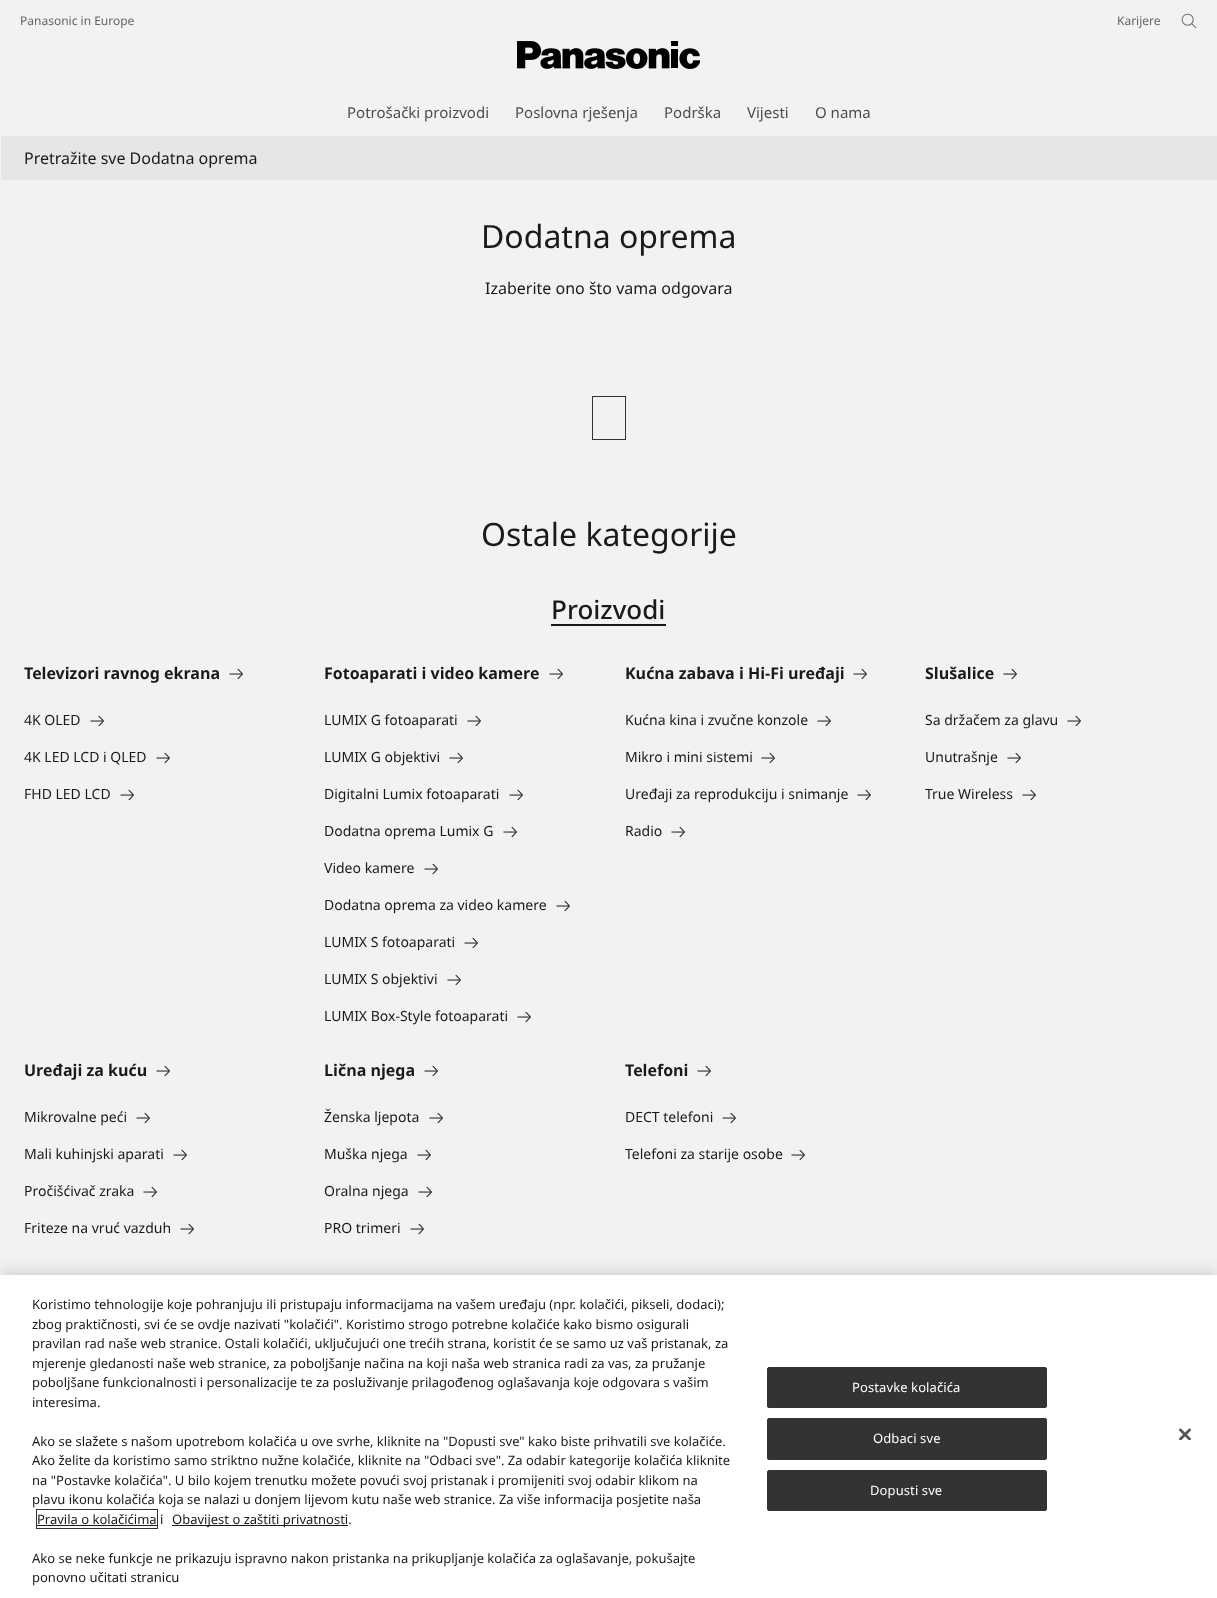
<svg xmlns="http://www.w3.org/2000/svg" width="1217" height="1598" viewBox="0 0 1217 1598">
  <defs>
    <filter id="blur1" x="-50%" y="-200%" width="200%" height="500%"><feGaussianBlur stdDeviation="9"/></filter>
  </defs>
  <rect width="100%" height="100%" fill="#f2f2f2"/>
  <text x="20" y="25" font-family="Noto Sans" font-size="12" fill="#666666">Panasonic in Europe</text>
  <text x="1117" y="25" font-family="Noto Sans" font-size="12" fill="#666666">Karijere</text>
  <image x="1181" y="13" width="16" height="16" href="img1.png"/>
  <image x="517" y="41" width="183" height="28" href="img2.png"/>
  <text x="347" y="118" font-family="Noto Sans" font-size="15" fill="#4d4d4d">Potrošački proizvodi</text>
  <text x="515" y="118" font-family="Noto Sans" font-size="15" fill="#4d4d4d">Poslovna rješenja</text>
  <text x="664" y="118" font-family="Noto Sans" font-size="15" fill="#4d4d4d">Podrška</text>
  <text x="747" y="118" font-family="Noto Sans" font-size="15" fill="#4d4d4d">Vijesti</text>
  <text x="815" y="118" font-family="Noto Sans" font-size="15" fill="#4d4d4d">O nama</text>
  <rect x="1" y="136" width="1216" height="44" fill="#e6e6e6"/>
  <text x="24" y="164" font-family="Noto Sans" font-size="16" fill="#1a1a1a">Pretražite sve Dodatna oprema</text>
  <text x="481" y="248" font-family="Noto Sans" font-size="32" fill="#1a1a1a">Dodatna oprema</text>
  <text x="485" y="294" font-family="Noto Sans" font-size="16" fill="#1a1a1a">Izaberite ono što vama odgovara</text>
  <rect x="592.5" y="396.5" width="33" height="43" fill="none" stroke="#333333"/>
  <text x="481" y="546" font-family="Noto Sans" font-size="32" fill="#1a1a1a">Ostale kategorije</text>
  <text x="551" y="619" font-family="Noto Sans" font-size="26" font-weight="500" fill="#1a1a1a">Proizvodi</text>
  <rect x="551" y="624" width="115" height="2" fill="#1a1a1a"/>
  <text x="24" y="679" font-family="Noto Sans" font-size="16" font-weight="bold" fill="#1a1a1a">Televizori ravnog ekrana</text>
  <image x="229" y="668" width="14" height="12" href="img3.png"/>
  <text x="24" y="725" font-family="Noto Sans" font-size="14" fill="#1a1a1a">4K OLED</text>
  <image x="90" y="715" width="14" height="12" href="img3.png"/>
  <text x="24" y="762" font-family="Noto Sans" font-size="14" fill="#1a1a1a">4K LED LCD i QLED</text>
  <image x="156" y="752" width="14" height="12" href="img3.png"/>
  <text x="24" y="799" font-family="Noto Sans" font-size="14" fill="#1a1a1a">FHD LED LCD</text>
  <image x="120" y="789" width="14" height="12" href="img3.png"/>
  <text x="324" y="679" font-family="Noto Sans" font-size="16" font-weight="bold" fill="#1a1a1a">Fotoaparati i video kamere</text>
  <image x="549" y="668" width="14" height="12" href="img3.png"/>
  <text x="324" y="725" font-family="Noto Sans" font-size="14" fill="#1a1a1a">LUMIX G fotoaparati</text>
  <image x="467" y="715" width="14" height="12" href="img3.png"/>
  <text x="324" y="762" font-family="Noto Sans" font-size="14" fill="#1a1a1a">LUMIX G objektivi</text>
  <image x="449" y="752" width="14" height="12" href="img3.png"/>
  <text x="324" y="799" font-family="Noto Sans" font-size="14" fill="#1a1a1a">Digitalni Lumix fotoaparati</text>
  <image x="509" y="789" width="14" height="12" href="img3.png"/>
  <text x="324" y="836" font-family="Noto Sans" font-size="14" fill="#1a1a1a">Dodatna oprema Lumix G</text>
  <image x="503" y="826" width="14" height="12" href="img3.png"/>
  <text x="324" y="873" font-family="Noto Sans" font-size="14" fill="#1a1a1a">Video kamere</text>
  <image x="424" y="863" width="14" height="12" href="img3.png"/>
  <text x="324" y="910" font-family="Noto Sans" font-size="14" fill="#1a1a1a">Dodatna oprema za video kamere</text>
  <image x="556" y="900" width="14" height="12" href="img3.png"/>
  <text x="324" y="947" font-family="Noto Sans" font-size="14" fill="#1a1a1a">LUMIX S fotoaparati</text>
  <image x="464" y="937" width="14" height="12" href="img3.png"/>
  <text x="324" y="984" font-family="Noto Sans" font-size="14" fill="#1a1a1a">LUMIX S objektivi</text>
  <image x="447" y="974" width="14" height="12" href="img3.png"/>
  <text x="324" y="1021" font-family="Noto Sans" font-size="14" fill="#1a1a1a">LUMIX Box-Style fotoaparati</text>
  <image x="517" y="1011" width="14" height="12" href="img3.png"/>
  <text x="625" y="679" font-family="Noto Sans" font-size="16" font-weight="bold" fill="#1a1a1a">Kućna zabava i Hi-Fi uređaji</text>
  <image x="853" y="668" width="14" height="12" href="img3.png"/>
  <text x="625" y="725" font-family="Noto Sans" font-size="14" fill="#1a1a1a">Kućna kina i zvučne konzole</text>
  <image x="817" y="715" width="14" height="12" href="img3.png"/>
  <text x="625" y="762" font-family="Noto Sans" font-size="14" fill="#1a1a1a">Mikro i mini sistemi</text>
  <image x="761" y="752" width="14" height="12" href="img3.png"/>
  <text x="625" y="799" font-family="Noto Sans" font-size="14" fill="#1a1a1a">Uređaji za reprodukciju i snimanje</text>
  <image x="857" y="789" width="14" height="12" href="img3.png"/>
  <text x="625" y="836" font-family="Noto Sans" font-size="14" fill="#1a1a1a">Radio</text>
  <image x="671" y="826" width="14" height="12" href="img3.png"/>
  <text x="925" y="679" font-family="Noto Sans" font-size="16" font-weight="bold" fill="#1a1a1a">Slušalice</text>
  <image x="1003" y="668" width="14" height="12" href="img3.png"/>
  <text x="925" y="725" font-family="Noto Sans" font-size="14" fill="#1a1a1a">Sa držačem za glavu</text>
  <image x="1067" y="715" width="14" height="12" href="img3.png"/>
  <text x="925" y="762" font-family="Noto Sans" font-size="14" fill="#1a1a1a">Unutrašnje</text>
  <image x="1007" y="752" width="14" height="12" href="img3.png"/>
  <text x="925" y="799" font-family="Noto Sans" font-size="14" fill="#1a1a1a">True Wireless</text>
  <image x="1022" y="789" width="14" height="12" href="img3.png"/>
  <text x="24" y="1076" font-family="Noto Sans" font-size="16" font-weight="bold" fill="#1a1a1a">Uređaji za kuću</text>
  <image x="156" y="1065" width="14" height="12" href="img3.png"/>
  <text x="24" y="1122" font-family="Noto Sans" font-size="14" fill="#1a1a1a">Mikrovalne peći</text>
  <image x="136" y="1112" width="14" height="12" href="img3.png"/>
  <text x="24" y="1159" font-family="Noto Sans" font-size="14" fill="#1a1a1a">Mali kuhinjski aparati</text>
  <image x="173" y="1149" width="14" height="12" href="img3.png"/>
  <text x="24" y="1196" font-family="Noto Sans" font-size="14" fill="#1a1a1a">Pročišćivač zraka</text>
  <image x="143" y="1186" width="14" height="12" href="img3.png"/>
  <text x="24" y="1233" font-family="Noto Sans" font-size="14" fill="#1a1a1a">Friteze na vruć vazduh</text>
  <image x="180" y="1223" width="14" height="12" href="img3.png"/>
  <text x="324" y="1076" font-family="Noto Sans" font-size="16" font-weight="bold" fill="#1a1a1a">Lična njega</text>
  <image x="424" y="1065" width="14" height="12" href="img3.png"/>
  <text x="324" y="1122" font-family="Noto Sans" font-size="14" fill="#1a1a1a">Ženska ljepota</text>
  <image x="429" y="1112" width="14" height="12" href="img3.png"/>
  <text x="324" y="1159" font-family="Noto Sans" font-size="14" fill="#1a1a1a">Muška njega</text>
  <image x="417" y="1149" width="14" height="12" href="img3.png"/>
  <text x="324" y="1196" font-family="Noto Sans" font-size="14" fill="#1a1a1a">Oralna njega</text>
  <image x="418" y="1186" width="14" height="12" href="img3.png"/>
  <text x="324" y="1233" font-family="Noto Sans" font-size="14" fill="#1a1a1a">PRO trimeri</text>
  <image x="410" y="1223" width="14" height="12" href="img3.png"/>
  <text x="625" y="1076" font-family="Noto Sans" font-size="16" font-weight="bold" fill="#1a1a1a">Telefoni</text>
  <image x="697" y="1065" width="14" height="12" href="img3.png"/>
  <text x="625" y="1122" font-family="Noto Sans" font-size="14" fill="#1a1a1a">DECT telefoni</text>
  <image x="722" y="1112" width="14" height="12" href="img3.png"/>
  <text x="625" y="1159" font-family="Noto Sans" font-size="14" fill="#1a1a1a">Telefoni za starije osobe</text>
  <image x="791" y="1149" width="14" height="12" href="img3.png"/>
  <rect x="0" y="1275" width="1217" height="323" fill="#000000" fill-opacity="0.2" filter="url(#blur1)"/>
  <rect x="0" y="1275" width="1217" height="323" fill="#ffffff"/>
  <text x="32" y="1309" font-family="Noto Sans" font-size="13" fill="#1a1a1a">Koristimo tehnologije koje pohranjuju ili pristupaju informacijama na vašem uređaju (npr. kolačići, pikseli, dodaci);</text>
  <text x="32" y="1329" font-family="Noto Sans" font-size="13" fill="#1a1a1a">zbog praktičnosti, svi će se ovdje nazivati "kolačići". Koristimo strogo potrebne kolačiće kako bismo osigurali</text>
  <text x="32" y="1348" font-family="Noto Sans" font-size="13" fill="#1a1a1a">pravilan rad naše web stranice. Ostali kolačići, uključujući one trećih strana, koristit će se samo uz vaš pristanak, za</text>
  <text x="32" y="1368" font-family="Noto Sans" font-size="13" fill="#1a1a1a">mjerenje gledanosti naše web stranice, za poboljšanje načina na koji naša web stranica radi za vas, za pružanje</text>
  <text x="32" y="1387" font-family="Noto Sans" font-size="13" fill="#1a1a1a">poboljšane funkcionalnosti i personalizacije te za posluživanje prilagođenog oglašavanja koje odgovara s vašim</text>
  <text x="32" y="1407" font-family="Noto Sans" font-size="13" fill="#1a1a1a">interesima.</text>
  <text x="32" y="1446" font-family="Noto Sans" font-size="13" fill="#1a1a1a">Ako se slažete s našom upotrebom kolačića u ove svrhe, kliknite na "Dopusti sve" kako biste prihvatili sve kolačiće.</text>
  <text x="32" y="1465" font-family="Noto Sans" font-size="13" fill="#1a1a1a">Ako želite da koristimo samo striktno nužne kolačiće, kliknite na "Odbaci sve". Za odabir kategorije kolačića kliknite</text>
  <text x="32" y="1485" font-family="Noto Sans" font-size="13" fill="#1a1a1a">na "Postavke kolačića". U bilo kojem trenutku možete povući svoj pristanak i promijeniti svoj odabir klikom na</text>
  <text x="32" y="1504" font-family="Noto Sans" font-size="13" fill="#1a1a1a">plavu ikonu kolačića koja se nalazi u donjem lijevom kutu naše web stranice. Za više informacija posjetite naša</text>
  <text x="37" y="1524" font-family="Noto Sans" font-size="13" fill="#1a1a1a">Pravila o kolačićima i</text>
  <rect x="37" y="1525" width="120" height="1" fill="#1a1a1a"/>
  <rect x="36.5" y="1509.5" width="121" height="19" fill="none" stroke="#333333"/>
  <rect x="172" y="1525" width="176" height="1" fill="#1a1a1a"/>
  <text x="172" y="1524" font-family="Noto Sans" font-size="13" fill="#1a1a1a">Obavijest o zaštiti privatnosti.</text>
  <text x="32" y="1563" font-family="Noto Sans" font-size="13" fill="#1a1a1a">Ako se neke funkcje ne prikazuju ispravno nakon pristanka na prikupljanje kolačića za oglašavanje, pokušajte</text>
  <text x="32" y="1582" font-family="Noto Sans" font-size="13" fill="#1a1a1a">ponovno učitati stranicu</text>
  <rect x="767.5" y="1367.5" width="279" height="40" rx="1.5" fill="#333333" stroke="#333333"/>
  <text x="852" y="1392" font-family="Noto Sans" font-size="13" letter-spacing="0.1" fill="#ffffff">Postavke kolačića</text>
  <rect x="767.5" y="1418.5" width="279" height="41" rx="1.5" fill="#333333" stroke="#333333"/>
  <text x="873" y="1443" font-family="Noto Sans" font-size="13" letter-spacing="0.1" fill="#ffffff">Odbaci sve</text>
  <rect x="767.5" y="1470.5" width="279" height="40" rx="1.5" fill="#333333" stroke="#333333"/>
  <text x="870" y="1495" font-family="Noto Sans" font-size="13" letter-spacing="0.1" fill="#ffffff">Dopusti sve</text>
  <image x="1179" y="1428" width="12" height="12" href="img4.png"/>
</svg>
